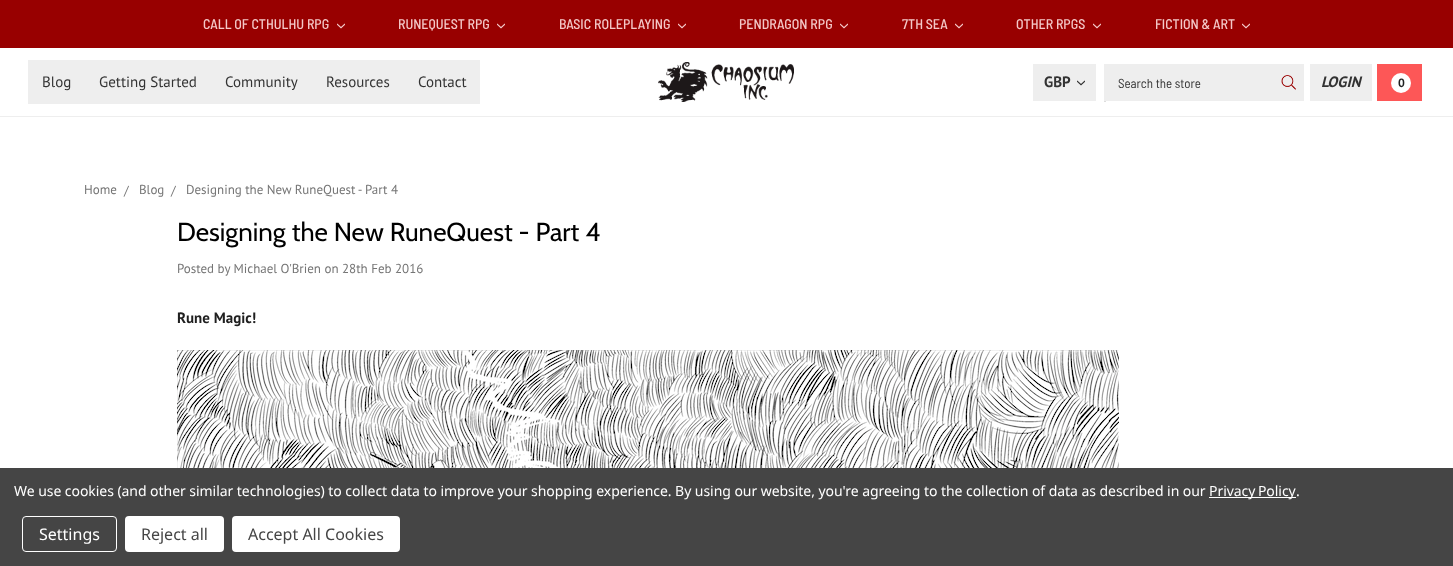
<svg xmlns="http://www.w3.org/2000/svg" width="1453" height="566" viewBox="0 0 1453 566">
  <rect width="100%" height="100%" fill="#ffffff"/>
  <rect x="0" y="116" width="1453" height="1" fill="#eeeeee"/>
  <rect x="0" y="0" width="1453" height="48" fill="#980000"/>
  <text x="203" y="29" font-family="Barlow Semi Condensed" font-size="14" font-weight="500" fill="#f4c8c8">CALL OF CTHULHU RPG</text>
  <image x="337" y="23" width="8" height="6" href="img1.png"/>
  <text x="398" y="29" font-family="Barlow Semi Condensed" font-size="14" font-weight="500" fill="#f4c8c8">RUNEQUEST RPG</text>
  <image x="497" y="23" width="8" height="6" href="img1.png"/>
  <text x="559" y="29" font-family="Barlow Semi Condensed" font-size="14" font-weight="500" fill="#f4c8c8">BASIC ROLEPLAYING</text>
  <image x="678" y="23" width="8" height="6" href="img1.png"/>
  <text x="739" y="29" font-family="Barlow Semi Condensed" font-size="14" font-weight="500" fill="#f4c8c8">PENDRAGON RPG</text>
  <image x="840" y="23" width="8" height="6" href="img1.png"/>
  <text x="902" y="29" font-family="Barlow Semi Condensed" font-size="14" font-weight="500" fill="#f4c8c8">7TH SEA</text>
  <image x="955" y="23" width="8" height="6" href="img1.png"/>
  <text x="1016" y="29" font-family="Barlow Semi Condensed" font-size="14" font-weight="500" fill="#f4c8c8">OTHER RPGS</text>
  <image x="1093" y="23" width="8" height="6" href="img1.png"/>
  <text x="1155" y="29" font-family="Barlow Semi Condensed" font-size="14" font-weight="500" fill="#f4c8c8">FICTION &amp; ART</text>
  <image x="1242" y="23" width="8" height="6" href="img1.png"/>
  <rect x="28" y="60" width="452" height="44" fill="#eeeeee"/>
  <text x="42" y="87" font-family="PT Sans" font-size="15" fill="#333333">Blog</text>
  <text x="99" y="87" font-family="PT Sans" font-size="15" fill="#333333">Getting Started</text>
  <text x="225" y="87" font-family="PT Sans" font-size="15" fill="#333333">Community</text>
  <text x="326" y="87" font-family="PT Sans" font-size="15" fill="#333333">Resources</text>
  <text x="418" y="87" font-family="PT Sans" font-size="15" fill="#333333">Contact</text>
  <image x="658" y="62" width="136" height="40" href="img2.png"/>
  <rect x="1033" y="64" width="63" height="37" fill="#eeeeee"/>
  <text x="1044" y="87" font-family="PT Sans" font-size="15" font-weight="bold" fill="#333333">GBP</text>
  <image x="1077" y="80" width="8" height="6" href="img3.png"/>
  <rect x="1104" y="64" width="200" height="37" fill="#eeeeee"/>
  <image x="1281" y="75" width="15" height="15" href="img4.png"/>
  <text x="1118" y="88" font-family="Barlow Semi Condensed" font-size="13" fill="#333333">Search the store</text>
  <rect x="1104" y="101" width="2" height="1" fill="#dddddd"/>
  <rect x="1310" y="64" width="62" height="37" fill="#eeeeee"/>
  <text x="1321" y="87" font-family="PT Sans" font-size="15" font-weight="bold" font-style="italic" fill="#333333">LOGIN</text>
  <rect x="1377" y="64" width="45" height="37" fill="#fd5757"/>
  <circle cx="1401" cy="83" r="10" fill="#ffffff"/>
  <text x="1398" y="87" font-family="PT Sans" font-size="12" font-weight="bold" fill="#202020">0</text>
  <text x="84" y="194" font-family="PT Sans" font-size="13" fill="#757575">Home</text>
  <text x="124" y="195" font-family="PT Sans" font-size="13" fill="#757575">/</text>
  <text x="139" y="194" font-family="PT Sans" font-size="13" fill="#757575">Blog</text>
  <text x="171" y="195" font-family="PT Sans" font-size="13" fill="#757575">/</text>
  <text x="186" y="194" font-family="PT Sans" font-size="13" fill="#757575">Designing the New RuneQuest - Part 4</text>
  <text x="177" y="241" font-family="Cabin" font-size="26" fill="#000000">Designing the New RuneQuest - Part 4</text>
  <text x="177" y="273" font-family="PT Sans" font-size="13" fill="#757575">Posted by Michael O'Brien on 28th Feb 2016</text>
  <text x="177" y="323" font-family="PT Sans" font-size="15" font-weight="bold" fill="#202020">Rune Magic!</text>
  <image x="177" y="350" width="942" height="118" href="img5.png"/>
  <rect x="0" y="468" width="1453" height="98" fill="#454545"/>
  <text x="14" y="496" font-family="Noto Sans" font-size="14" letter-spacing="-0.05" fill="#ffffff">We use cookies (and other similar technologies) to collect data to improve your shopping experience. By using our website, you're agreeing to the collection of data as described in our</text>
  <rect x="1209" y="497" width="87" height="1" fill="#ffffff"/>
  <text x="1209" y="496" word-spacing="-1" font-family="Noto Sans" font-size="14" letter-spacing="-0.05" fill="#ffffff">Privacy Policy</text>
  <text x="1296" y="496" font-family="Noto Sans" font-size="14" letter-spacing="-0.05" fill="#ffffff">.</text>
  <rect x="22.5" y="516.5" width="94" height="35" rx="3.5" fill="none" stroke="#ffffff"/>
  <text x="39" y="540" font-family="Noto Sans" font-size="16" fill="#ffffff">Settings</text>
  <rect x="125" y="516" width="99" height="36" rx="4" fill="#ffffff"/>
  <text x="141" y="540" font-family="Noto Sans" font-size="16" fill="#454545">Reject all</text>
  <rect x="232" y="516" width="168" height="36" rx="4" fill="#ffffff"/>
  <text x="248" y="540" font-family="Noto Sans" font-size="16" fill="#454545">Accept All Cookies</text>
</svg>
